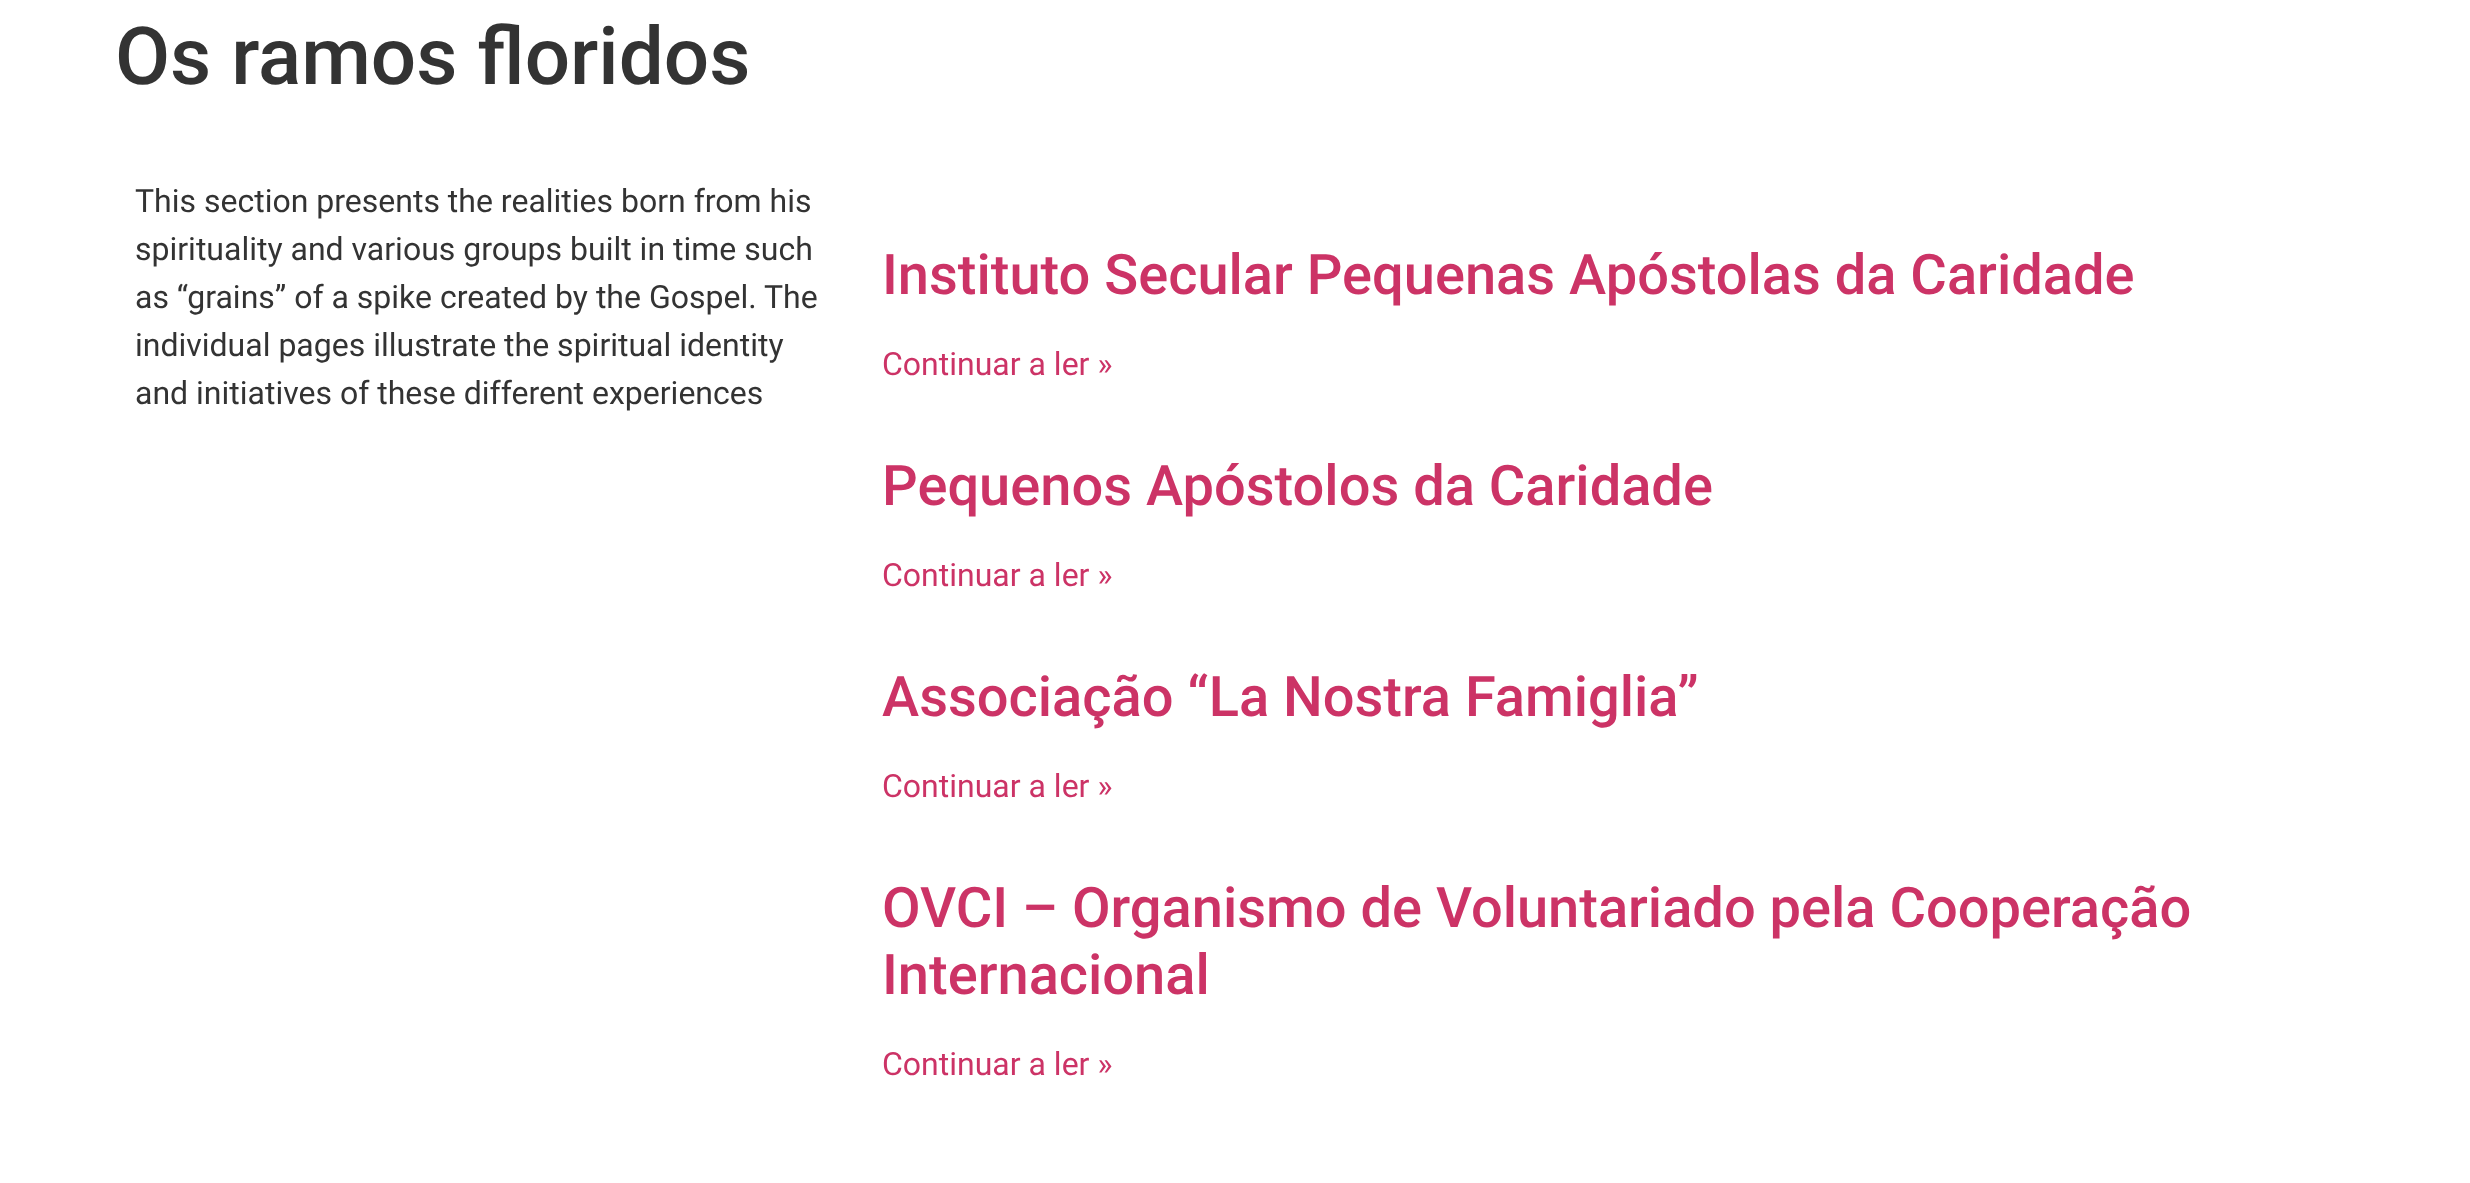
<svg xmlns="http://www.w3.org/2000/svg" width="2470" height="1183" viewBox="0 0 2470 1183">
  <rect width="100%" height="100%" fill="#ffffff"/>
  <text x="115" y="84" font-family="Roboto" font-size="80" font-weight="500" fill="#333333">Os ramos floridos</text>
  <text x="135" y="212" font-family="Roboto" font-size="32" fill="#333333">This section presents the realities born from his</text>
  <text x="135" y="260" font-family="Roboto" font-size="32" fill="#333333">spirituality and various groups built in time such</text>
  <text x="135" y="308" font-family="Roboto" font-size="32" fill="#333333">as “grains” of a spike created by the Gospel. The</text>
  <text x="135" y="356" font-family="Roboto" font-size="32" fill="#333333">individual pages illustrate the spiritual identity</text>
  <text x="135" y="404" font-family="Roboto" font-size="32" fill="#333333">and initiatives of these different experiences</text>
  <text x="882" y="294" font-family="Roboto" font-size="56" font-weight="500" fill="#cc3366">Instituto Secular Pequenas Apóstolas da Caridade</text>
  <text x="882" y="375" font-family="Roboto" font-size="32" fill="#cc3366">Continuar a ler »</text>
  <text x="882" y="505" font-family="Roboto" font-size="56" font-weight="500" fill="#cc3366">Pequenos Apóstolos da Caridade</text>
  <text x="882" y="586" font-family="Roboto" font-size="32" fill="#cc3366">Continuar a ler »</text>
  <text x="882" y="716" font-family="Roboto" font-size="56" font-weight="500" fill="#cc3366">Associação “La Nostra Famiglia”</text>
  <text x="882" y="797" font-family="Roboto" font-size="32" fill="#cc3366">Continuar a ler »</text>
  <text x="882" y="927" font-family="Roboto" font-size="56" font-weight="500" fill="#cc3366">OVCI – Organismo de Voluntariado pela Cooperação</text>
  <text x="882" y="994" font-family="Roboto" font-size="56" font-weight="500" fill="#cc3366">Internacional</text>
  <text x="882" y="1075" font-family="Roboto" font-size="32" fill="#cc3366">Continuar a ler »</text>
</svg>
